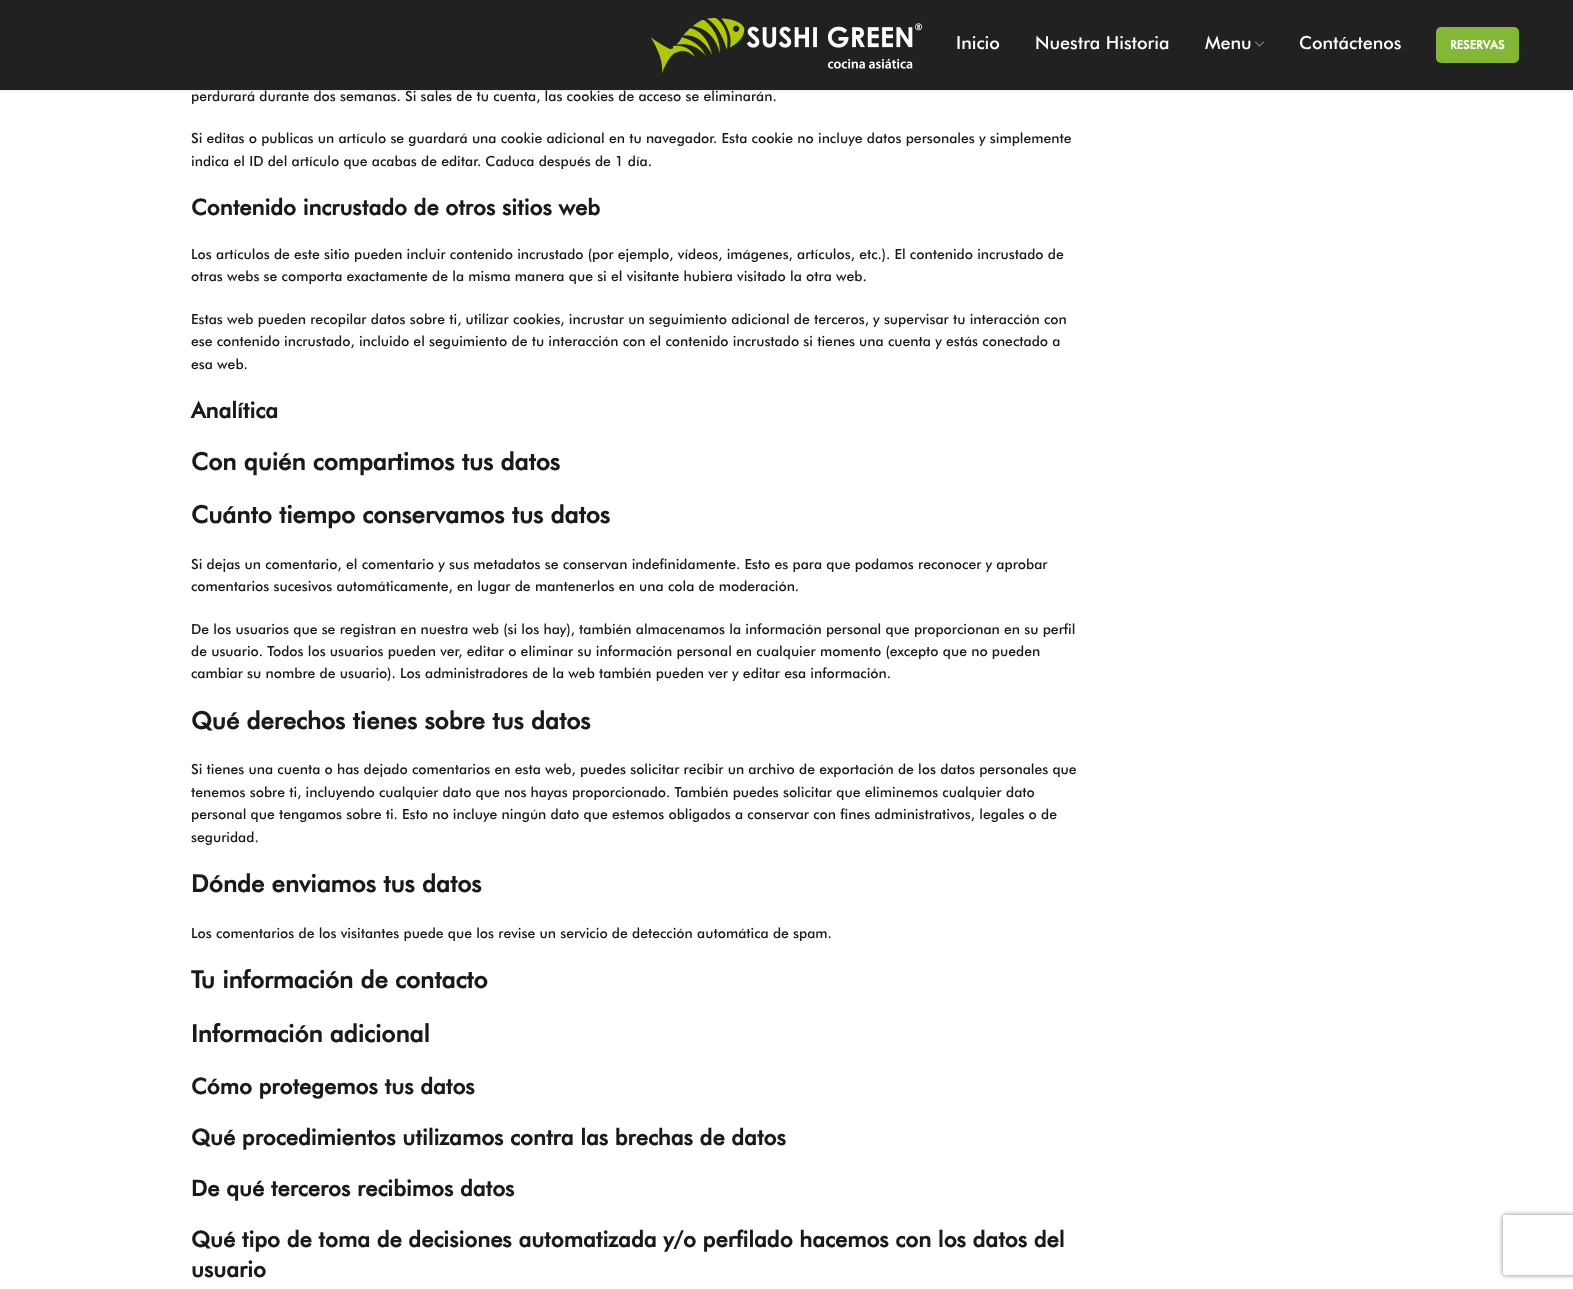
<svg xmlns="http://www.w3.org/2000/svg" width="1573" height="1289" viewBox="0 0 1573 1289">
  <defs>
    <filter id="blur1" x="-50%" y="-200%" width="200%" height="500%"><feGaussianBlur stdDeviation="1.5"/></filter>
    <clipPath id="clip1"><path d="M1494 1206H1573V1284H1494ZM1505 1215H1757C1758 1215 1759 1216 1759 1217V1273C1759 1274 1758 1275 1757 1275H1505C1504 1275 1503 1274 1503 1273V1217C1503 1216 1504 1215 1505 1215Z" clip-rule="evenodd"/></clipPath>
    <filter id="blur2" x="-50%" y="-200%" width="200%" height="500%"><feGaussianBlur stdDeviation="2.5"/></filter>
  </defs>
  <rect width="100%" height="100%" fill="#ffffff"/>
  <rect x="0" y="1" width="1573" height="90" fill="#000000" fill-opacity="0.1" filter="url(#blur1)"/>
  <rect x="0" y="0" width="1573" height="90" fill="#212121"/>
  <image x="651" y="18" width="271" height="55" href="img1.png"/>
  <text x="956" y="49" font-family="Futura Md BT" font-size="18" font-weight="500" fill="#ffffff">Inicio</text>
  <text x="1035" y="49" font-family="Futura Md BT" font-size="18" font-weight="500" fill="#ffffff">Nuestra Historia</text>
  <text x="1205" y="49" font-family="Futura Md BT" font-size="18" font-weight="500" fill="#ffffff">Menu</text>
  <image x="1255" y="41" width="9" height="6" href="img2.png"/>
  <text x="1299" y="49" font-family="Futura Md BT" font-size="18" font-weight="500" fill="#ffffff">Contáctenos</text>
  <rect x="1436" y="27" width="83" height="36" rx="5" fill="#83b735"/>
  <text x="1450" y="49" font-family="Futura Md BT" font-size="12" font-weight="bold" fill="#ffffff">RESERVAS</text>
  <text x="191" y="101" font-family="Futura Md BT" font-size="14" font-weight="500" fill="#1a1a1a">perdurará durante dos semanas. Si sales de tu cuenta, las cookies de acceso se eliminarán.</text>
  <text x="191" y="143" font-family="Futura Md BT" font-size="14" font-weight="500" fill="#1a1a1a">Si editas o publicas un artículo se guardará una cookie adicional en tu navegador. Esta cookie no incluye datos personales y simplemente</text>
  <text x="191" y="166" font-family="Futura Md BT" font-size="14" font-weight="500" fill="#1a1a1a">indica el ID del artículo que acabas de editar. Caduca después de 1 día.</text>
  <text x="191" y="215" font-family="Futura Md BT" font-size="22" font-weight="bold" fill="#1a1a1a">Contenido incrustado de otros sitios web</text>
  <text x="191" y="259" font-family="Futura Md BT" font-size="14" font-weight="500" fill="#1a1a1a">Los artículos de este sitio pueden incluir contenido incrustado (por ejemplo, vídeos, imágenes, artículos, etc.). El contenido incrustado de</text>
  <text x="191" y="281" font-family="Futura Md BT" font-size="14" font-weight="500" fill="#1a1a1a">otras webs se comporta exactamente de la misma manera que si el visitante hubiera visitado la otra web.</text>
  <text x="191" y="324" font-family="Futura Md BT" font-size="14" font-weight="500" fill="#1a1a1a">Estas web pueden recopilar datos sobre ti, utilizar cookies, incrustar un seguimiento adicional de terceros, y supervisar tu interacción con</text>
  <text x="191" y="346" font-family="Futura Md BT" font-size="14" font-weight="500" fill="#1a1a1a">ese contenido incrustado, incluido el seguimiento de tu interacción con el contenido incrustado si tienes una cuenta y estás conectado a</text>
  <text x="191" y="369" font-family="Futura Md BT" font-size="14" font-weight="500" fill="#1a1a1a">esa web.</text>
  <text x="191" y="418" font-family="Futura Md BT" font-size="22" font-weight="bold" fill="#1a1a1a">Analítica</text>
  <text x="191" y="470" font-family="Futura Md BT" font-size="24" font-weight="bold" fill="#1a1a1a">Con quién compartimos tus datos</text>
  <text x="191" y="523" font-family="Futura Md BT" font-size="24" font-weight="bold" fill="#1a1a1a">Cuánto tiempo conservamos tus datos</text>
  <text x="191" y="569" font-family="Futura Md BT" font-size="14" font-weight="500" fill="#1a1a1a">Si dejas un comentario, el comentario y sus metadatos se conservan indefinidamente. Esto es para que podamos reconocer y aprobar</text>
  <text x="191" y="591" font-family="Futura Md BT" font-size="14" font-weight="500" fill="#1a1a1a">comentarios sucesivos automáticamente, en lugar de mantenerlos en una cola de moderación.</text>
  <text x="191" y="634" font-family="Futura Md BT" font-size="14" font-weight="500" fill="#1a1a1a">De los usuarios que se registran en nuestra web (si los hay), también almacenamos la información personal que proporcionan en su perfil</text>
  <text x="191" y="656" font-family="Futura Md BT" font-size="14" font-weight="500" fill="#1a1a1a">de usuario. Todos los usuarios pueden ver, editar o eliminar su información personal en cualquier momento (excepto que no pueden</text>
  <text x="191" y="678" font-family="Futura Md BT" font-size="14" font-weight="500" fill="#1a1a1a">cambiar su nombre de usuario). Los administradores de la web también pueden ver y editar esa información.</text>
  <text x="191" y="729" font-family="Futura Md BT" font-size="24" font-weight="bold" fill="#1a1a1a">Qué derechos tienes sobre tus datos</text>
  <text x="191" y="774" font-family="Futura Md BT" font-size="14" font-weight="500" fill="#1a1a1a">Si tienes una cuenta o has dejado comentarios en esta web, puedes solicitar recibir un archivo de exportación de los datos personales que</text>
  <text x="191" y="797" font-family="Futura Md BT" font-size="14" font-weight="500" fill="#1a1a1a">tenemos sobre ti, incluyendo cualquier dato que nos hayas proporcionado. También puedes solicitar que eliminemos cualquier dato</text>
  <text x="191" y="819" font-family="Futura Md BT" font-size="14" font-weight="500" fill="#1a1a1a">personal que tengamos sobre ti. Esto no incluye ningún dato que estemos obligados a conservar con fines administrativos, legales o de</text>
  <text x="191" y="842" font-family="Futura Md BT" font-size="14" font-weight="500" fill="#1a1a1a">seguridad.</text>
  <text x="191" y="892" font-family="Futura Md BT" font-size="24" font-weight="bold" fill="#1a1a1a">Dónde enviamos tus datos</text>
  <text x="191" y="938" font-family="Futura Md BT" font-size="14" font-weight="500" fill="#1a1a1a">Los comentarios de los visitantes puede que los revise un servicio de detección automática de spam.</text>
  <text x="191" y="988" font-family="Futura Md BT" font-size="24" font-weight="bold" fill="#1a1a1a">Tu información de contacto</text>
  <text x="191" y="1042" font-family="Futura Md BT" font-size="24" font-weight="bold" fill="#1a1a1a">Información adicional</text>
  <text x="191" y="1094" font-family="Futura Md BT" font-size="22" font-weight="bold" fill="#1a1a1a">Cómo protegemos tus datos</text>
  <text x="191" y="1145" font-family="Futura Md BT" font-size="22" font-weight="bold" fill="#1a1a1a">Qué procedimientos utilizamos contra las brechas de datos</text>
  <text x="191" y="1196" font-family="Futura Md BT" font-size="22" font-weight="bold" fill="#1a1a1a">De qué terceros recibimos datos</text>
  <text x="191" y="1247" font-family="Futura Md BT" font-size="22" font-weight="bold" fill="#1a1a1a">Qué tipo de toma de decisiones automatizada y/o perfilado hacemos con los datos del</text>
  <text x="191" y="1277" font-family="Futura Md BT" font-size="22" font-weight="bold" fill="#1a1a1a">usuario</text>
  <g clip-path="url(#clip1)">
    <rect x="1503" y="1215" width="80" height="60" rx="2" fill="#808080" filter="url(#blur2)"/>
  </g>
</svg>
